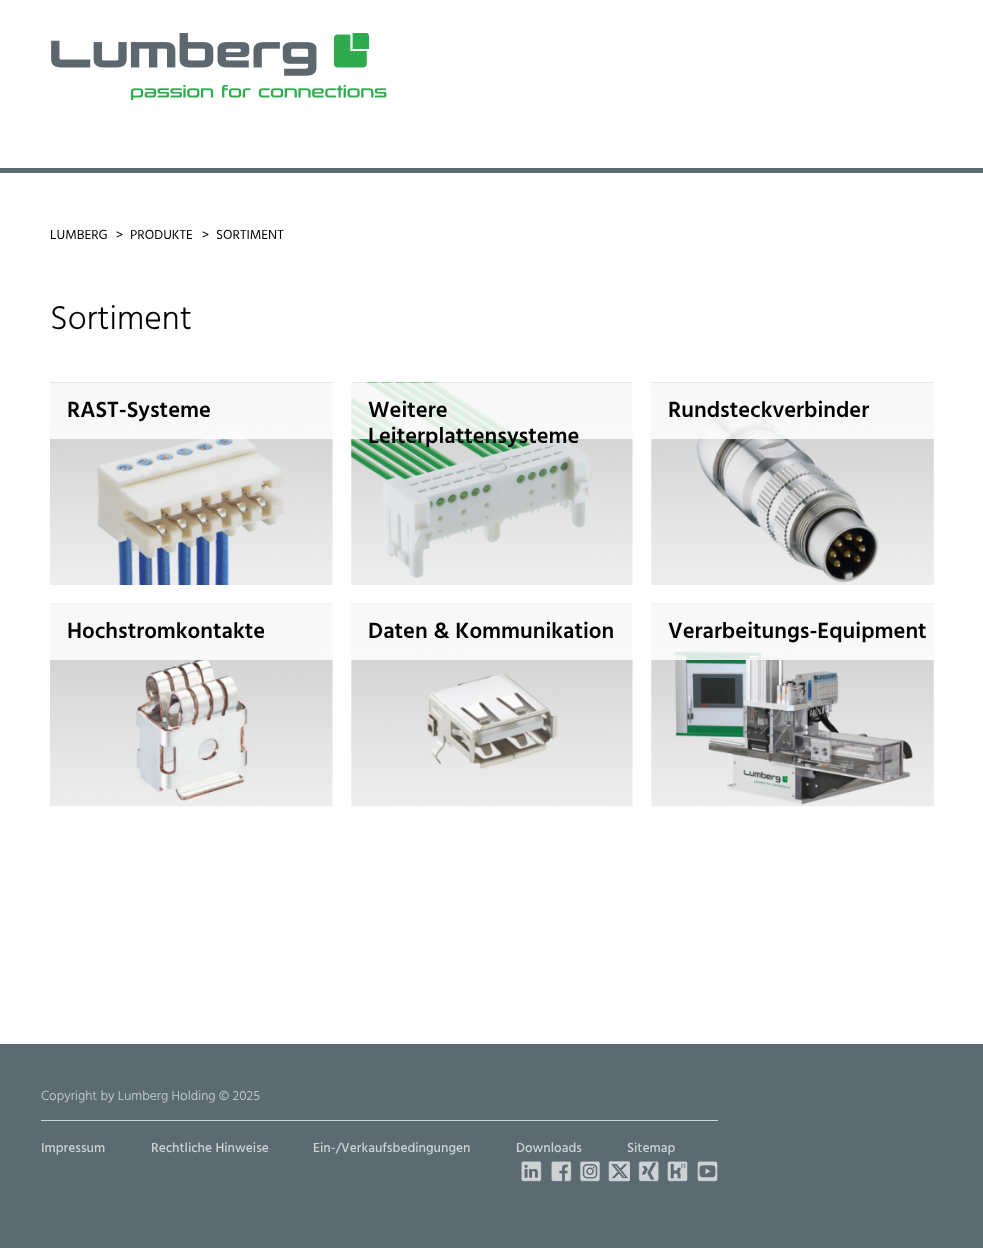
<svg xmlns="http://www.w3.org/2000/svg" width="983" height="1248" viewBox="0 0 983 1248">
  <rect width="100%" height="100%" fill="#ffffff"/>
  <rect x="0" y="168" width="983" height="5" fill="#5c6a72"/>
  <image x="51" y="33" width="336" height="67" href="img1.png"/>
  <text x="50" y="239" font-family="Hind" font-size="13.5" fill="#000000">LUMBERG</text>
  <text x="116" y="239" font-family="Hind" font-size="13.5" fill="#000000">&gt;</text>
  <text x="130" y="239" font-family="Hind" font-size="13.5" fill="#000000">PRODUKTE</text>
  <text x="202" y="239" font-family="Hind" font-size="13.5" fill="#000000">&gt;</text>
  <text x="216" y="239" font-family="Hind" font-size="13.5" fill="#000000">SORTIMENT</text>
  <text x="50" y="329" font-family="Hind" font-size="33.75" font-weight="300" fill="#000000">Sortiment</text>
  <image x="50" y="382" width="283" height="203" href="img2.png"/>
  <rect x="50" y="383" width="283" height="56" fill="#ffffff" fill-opacity="0.85"/>
  <text x="67" y="417" font-family="Hind" font-size="22.5" font-weight="600" fill="#000000">RAST-Systeme</text>
  <image x="351" y="382" width="282" height="203" href="img3.png"/>
  <rect x="351" y="383" width="282" height="56" fill="#ffffff" fill-opacity="0.85"/>
  <text x="368" y="417" font-family="Hind" font-size="22.5" font-weight="600" fill="#000000">Weitere</text>
  <text x="368" y="443" font-family="Hind" font-size="22.5" font-weight="600" fill="#000000">Leiterplattensysteme</text>
  <image x="651" y="382" width="283" height="203" href="img4.png"/>
  <rect x="651" y="383" width="283" height="56" fill="#ffffff" fill-opacity="0.85"/>
  <text x="668" y="417" font-family="Hind" font-size="22.5" font-weight="600" fill="#000000">Rundsteckverbinder</text>
  <image x="50" y="603" width="283" height="204" href="img5.png"/>
  <rect x="50" y="604" width="283" height="56" fill="#ffffff" fill-opacity="0.85"/>
  <text x="67" y="638" font-family="Hind" font-size="22.5" font-weight="600" fill="#000000">Hochstromkontakte</text>
  <image x="351" y="603" width="282" height="204" href="img6.png"/>
  <rect x="351" y="604" width="282" height="56" fill="#ffffff" fill-opacity="0.85"/>
  <text x="368" y="638" font-family="Hind" font-size="22.5" font-weight="600" fill="#000000">Daten &amp; Kommunikation</text>
  <image x="651" y="603" width="283" height="204" href="img7.png"/>
  <rect x="651" y="604" width="283" height="56" fill="#ffffff" fill-opacity="0.85"/>
  <text x="668" y="638" font-family="Hind" font-size="22.5" font-weight="600" fill="#000000">Verarbeitungs-Equipment</text>
  <rect x="0" y="1044" width="983" height="204" fill="#5c6a72"/>
  <text x="41" y="1100" font-family="Hind" font-size="13.5" font-weight="300" fill="#ced2d5">Copyright by Lumberg Holding © 2025</text>
  <rect x="41" y="1120" width="677" height="1" fill="#ced2d5"/>
  <text x="41" y="1152" font-family="Hind" font-size="13.5" font-weight="500" fill="#ced2d5">Impressum</text>
  <text x="151" y="1152" font-family="Hind" font-size="13.5" font-weight="500" fill="#ced2d5">Rechtliche Hinweise</text>
  <text x="313" y="1152" font-family="Hind" font-size="13.5" font-weight="500" fill="#ced2d5">Ein-/Verkaufsbedingungen</text>
  <text x="516" y="1152" font-family="Hind" font-size="13.5" font-weight="500" fill="#ced2d5">Downloads</text>
  <text x="627" y="1152" font-family="Hind" font-size="13.5" font-weight="500" fill="#ced2d5">Sitemap</text>
  <image x="521" y="1161" width="21" height="21" href="img8.png"/>
  <image x="551" y="1161" width="21" height="21" href="img9.png"/>
  <image x="580" y="1161" width="20" height="21" href="img10.png"/>
  <image x="608" y="1161" width="22" height="21" href="img11.png"/>
  <image x="638" y="1161" width="21" height="21" href="img12.png"/>
  <image x="667" y="1161" width="21" height="21" href="img13.png"/>
  <image x="697" y="1161" width="21" height="21" href="img14.png"/>
</svg>
